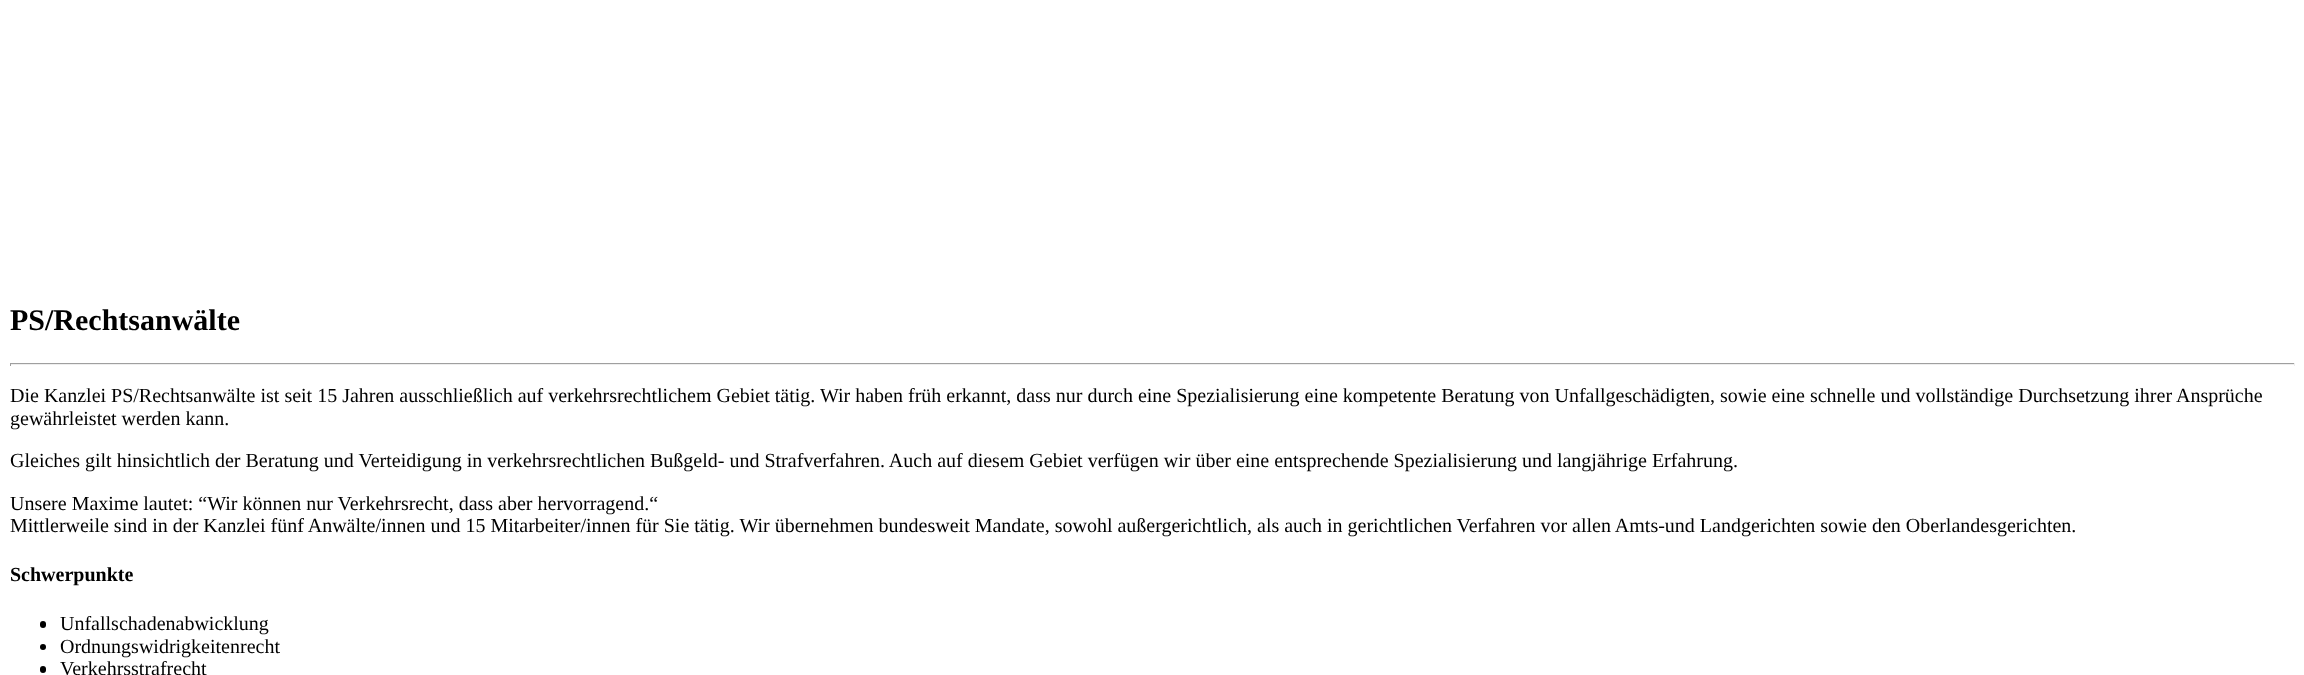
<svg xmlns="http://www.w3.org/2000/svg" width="2304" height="675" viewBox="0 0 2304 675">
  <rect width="100%" height="100%" fill="#ffffff"/>
  <text x="10" y="330" font-family="Liberation Serif" font-size="30" font-weight="bold" fill="#000000">PS/Rechtsanwälte</text>
  <rect x="10" y="363" width="2285" height="1" fill="#9f9f9f"/>
  <rect x="2294" y="363" width="1" height="3" fill="#eeeeee"/>
  <rect x="10" y="364" width="2285" height="1" fill="#eeeeee"/>
  <rect x="10" y="363" width="1" height="3" fill="#9f9f9f"/>
  <text x="10" y="402" font-family="Liberation Serif" font-size="20" fill="#000000">Die Kanzlei PS/Rechtsanwälte ist seit 15 Jahren ausschließlich auf verkehrsrechtlichem Gebiet tätig. Wir haben früh erkannt, dass nur durch eine Spezialisierung eine kompetente Beratung von Unfallgeschädigten, sowie eine schnelle und vollständige Durchsetzung ihrer Ansprüche</text>
  <text x="10" y="425" font-family="Liberation Serif" font-size="20" fill="#000000">gewährleistet werden kann.</text>
  <text x="10" y="467" font-family="Liberation Serif" font-size="20" fill="#000000">Gleiches gilt hinsichtlich der Beratung und Verteidigung in verkehrsrechtlichen Bußgeld- und Strafverfahren. Auch auf diesem Gebiet verfügen wir über eine entsprechende Spezialisierung und langjährige Erfahrung.</text>
  <text x="10" y="510" font-family="Liberation Serif" font-size="20" fill="#000000">Unsere Maxime lautet: “Wir können nur Verkehrsrecht, dass aber hervorragend.“</text>
  <text x="10" y="532" font-family="Liberation Serif" font-size="20" fill="#000000">Mittlerweile sind in der Kanzlei fünf Anwälte/innen und 15 Mitarbeiter/innen für Sie tätig. Wir übernehmen bundesweit Mandate, sowohl außergerichtlich, als auch in gerichtlichen Verfahren vor allen Amts-und Landgerichten sowie den Oberlandesgerichten.</text>
  <text x="10" y="581" font-family="Liberation Serif" font-size="20" font-weight="bold" fill="#000000">Schwerpunkte</text>
  <rect x="40" y="621" width="6" height="7" rx="3" fill="#000000"/>
  <text x="60" y="630" font-family="Liberation Serif" font-size="20" fill="#000000">Unfallschadenabwicklung</text>
  <circle cx="43" cy="647" r="3" fill="#000000"/>
  <text x="60" y="653" font-family="Liberation Serif" font-size="20" fill="#000000">Ordnungswidrigkeitenrecht</text>
  <rect x="40" y="666" width="6" height="7" rx="3" fill="#000000"/>
  <text x="60" y="675" font-family="Liberation Serif" font-size="20" fill="#000000">Verkehrsstrafrecht</text>
</svg>
